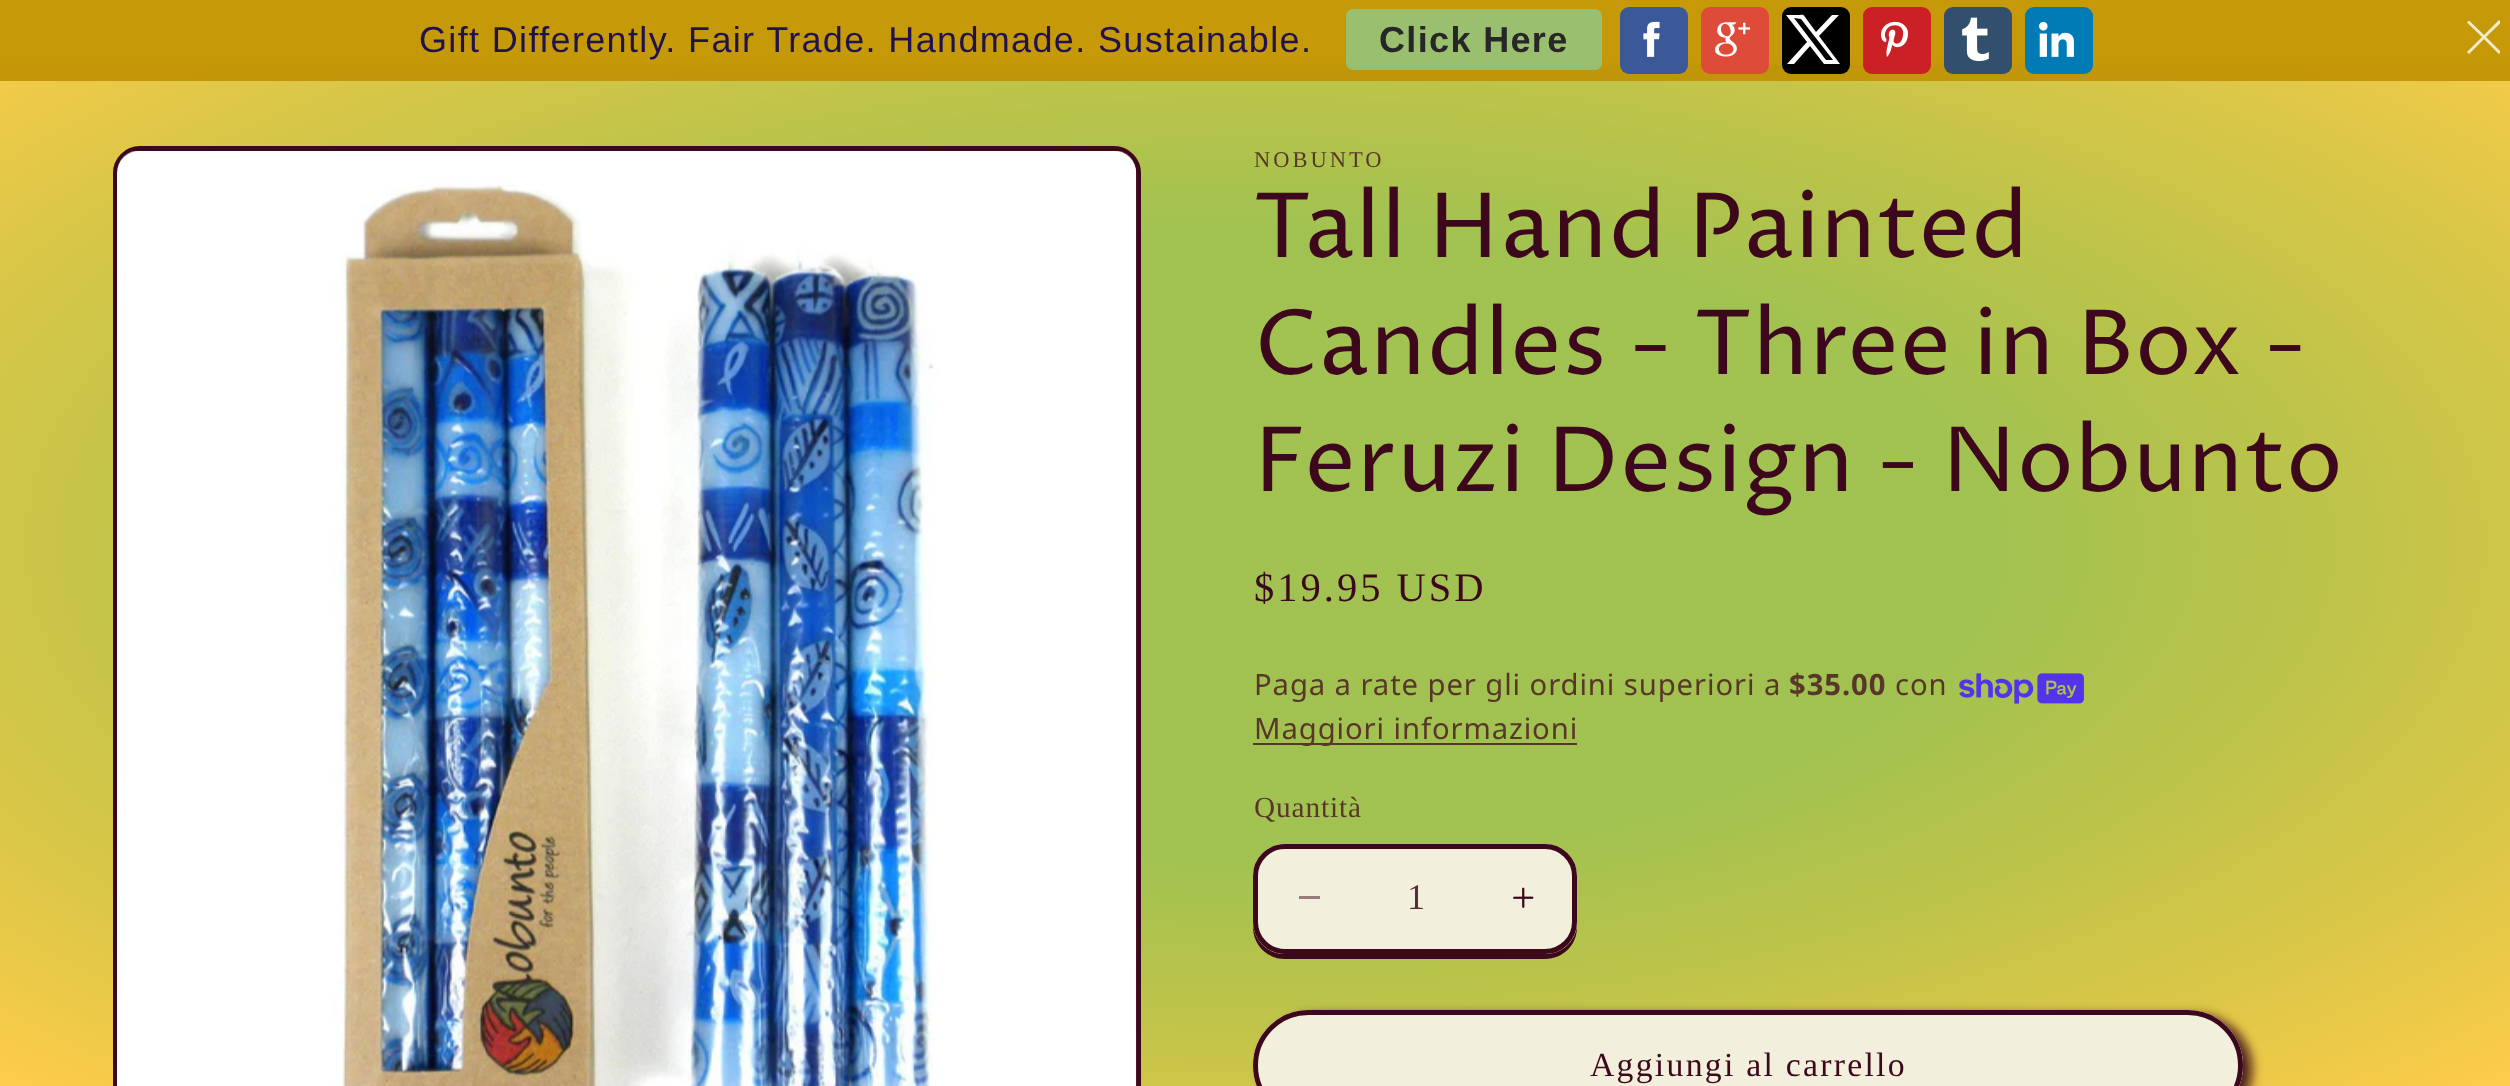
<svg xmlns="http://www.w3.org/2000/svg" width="2510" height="1086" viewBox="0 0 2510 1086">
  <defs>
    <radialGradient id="g1" gradientUnits="userSpaceOnUse" cx="0" cy="0" r="1" gradientTransform="matrix(1776 0 0 768 1256 543)"><stop offset="0.41" stop-color="#bad27f"/><stop offset="1" stop-color="#ffcc4b"/></radialGradient>
    <radialGradient id="g2" gradientUnits="userSpaceOnUse" cx="0" cy="0" r="1" gradientTransform="matrix(1776 0 0 768 1256 543)"><stop offset="0.41" stop-color="#94ba39" stop-opacity="0.65"/><stop offset="1" stop-color="#ffcc4b"/></radialGradient>
    <clipPath id="clip1"><rect x="2455" y="20" width="45" height="41"/></clipPath>
    <filter id="blur1" x="-50%" y="-200%" width="200%" height="500%"><feGaussianBlur stdDeviation="5.5"/></filter>
  </defs>
  <rect width="100%" height="100%" fill="#ffffff"/>
  <rect x="0" y="65" width="2510" height="1021" fill="url(#g1)"/>
  <rect x="0" y="0" width="2510" height="63" fill="#f9e547"/>
  <rect x="0" y="63" width="2510" height="2" fill="#ead343"/>
  <rect x="0" y="65" width="2510" height="1021" fill="url(#g2)"/>
  <rect x="0" y="0" width="2510" height="81" fill="#bf9000" fill-opacity="0.89"/>
  <text x="419" y="52" font-family="Liberation Sans" font-size="36" letter-spacing="1.35" fill="#20124d">Gift Differently. Fair Trade. Handmade. Sustainable.</text>
  <rect x="1346" y="9" width="256" height="61" rx="7" fill="#93c47d" fill-opacity="0.89"/>
  <text x="1379" y="52" font-family="Liberation Sans" font-size="36" font-weight="bold" letter-spacing="1.35" fill="#272727">Click Here</text>
  <rect x="1620" y="7" width="68" height="67" rx="9" fill="#3b5999"/>
  <image x="1643" y="21" width="17" height="36" href="img1.png"/>
  <rect x="1701" y="7" width="68" height="67" rx="9" fill="#de4b39"/>
  <image x="1715" y="22" width="35" height="35" href="img2.png"/>
  <rect x="1782" y="7" width="68" height="67" rx="9" fill="#000000"/>
  <path d="M1819 36L1840 64H1824L1810 46L1794 64H1787L1807 42L1786 15H1799C1803 15 1803 14 1805 17L1816 32L1832 15H1839ZM1794 18L1826 60H1833L1801 19Z" fill="#ffffff"/>
  <rect x="1863" y="7" width="68" height="67" rx="9" fill="#cb2026"/>
  <image x="1880" y="21" width="29" height="36" href="img3.png"/>
  <rect x="1944" y="7" width="68" height="67" rx="9" fill="#32506d"/>
  <image x="1962" y="17" width="27" height="45" href="img4.png"/>
  <rect x="2025" y="7" width="68" height="67" rx="9" fill="#007bb6"/>
  <image x="2039" y="21" width="35" height="36" href="img5.png"/>
  <g clip-path="url(#clip1)">
    <path d="M2499 20L2484 35L2469 20.5L2467 22.5L2482 37L2467 52L2469 54L2484 39L2499 54L2501 52L2486 37L2501 22.5Z" fill="#f3ebce"/>
  </g>
  <rect x="115.5" y="148.5" width="1023" height="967" rx="24.5" fill="none" stroke="#3d081b" stroke-width="5"/>
  <image x="117" y="151" width="1020" height="935" href="img6.png"/>
  <text x="1254" y="167" font-family="Liberation Serif" font-size="22.5" letter-spacing="3" fill="#593728">NOBUNTO</text>
  <text x="1254" y="257" font-family="Proza Libre" font-size="90" letter-spacing="1.35" fill="#3d081b">Tall Hand Painted</text>
  <text x="1254" y="374" font-family="Proza Libre" font-size="90" letter-spacing="1.35" fill="#3d081b">Candles - Three in Box -</text>
  <text x="1254" y="491" font-family="Proza Libre" font-size="90" letter-spacing="1.35" fill="#3d081b">Feruzi Design - Nobunto</text>
  <text x="1254" y="601" font-family="Liberation Serif" font-size="40.5" letter-spacing="3" fill="#3d081b">$19.95 USD</text>
  <text x="1254" y="695" font-family="Noto Sans" font-size="29.25" letter-spacing="0.9" fill="#593728">Paga a rate per gli ordini superiori a</text>
  <text x="1789" y="695" font-family="Noto Sans" font-size="29.25" font-weight="bold" letter-spacing="0.9" fill="#593728">$35.00</text>
  <text x="1895" y="695" font-family="Noto Sans" font-size="29.25" letter-spacing="0.9" fill="#593728">con</text>
  <image x="1959" y="673" width="125" height="31" href="img7.png"/>
  <rect x="1253" y="743" width="324" height="2" fill="#563729"/>
  <text x="1254" y="739" font-family="Noto Sans" font-size="29.25" letter-spacing="0.9" fill="#593728">Maggiori informazioni</text>
  <text x="1254" y="817" font-family="Liberation Serif" font-size="29.25" letter-spacing="0.9" fill="#593728">Quantità</text>
  <path d="M1253 876V927C1253 945 1267 959 1285 959H1545C1563 959 1577 945 1577 927V926C1575 942 1562 954 1546 954H1285C1267 954 1253 940 1253 922Z" fill="#3d081b"/>
  <rect x="1253" y="844" width="324" height="110" rx="32" fill="#f2efdd"/>
  <rect x="1299" y="896" width="21" height="3" fill="#987c7c"/>
  <image x="1513" y="887" width="21" height="21" href="img8.png"/>
  <rect x="1255.5" y="846.5" width="319" height="105" rx="29.5" fill="none" stroke="#3d081b" stroke-width="5"/>
  <text x="1407" y="909" font-family="Liberation Serif" font-size="36" fill="#582b38">1</text>
  <rect x="1262" y="1015" width="990" height="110" rx="55" fill="#3d081b" fill-opacity="0.9" filter="url(#blur1)"/>
  <rect x="1253" y="1010" width="990" height="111" rx="55.5" fill="#f2efdd"/>
  <rect x="1255.5" y="1012.5" width="985" height="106" rx="53" fill="none" stroke="#f2efdd" stroke-width="5"/>
  <rect x="1255.5" y="1012.5" width="985" height="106" rx="53" fill="none" stroke="#3d081b" stroke-width="5"/>
  <text x="1590" y="1076" font-family="Liberation Serif" font-size="33.75" letter-spacing="2.25" fill="#3d081b">Aggiungi al carrello</text>
</svg>
